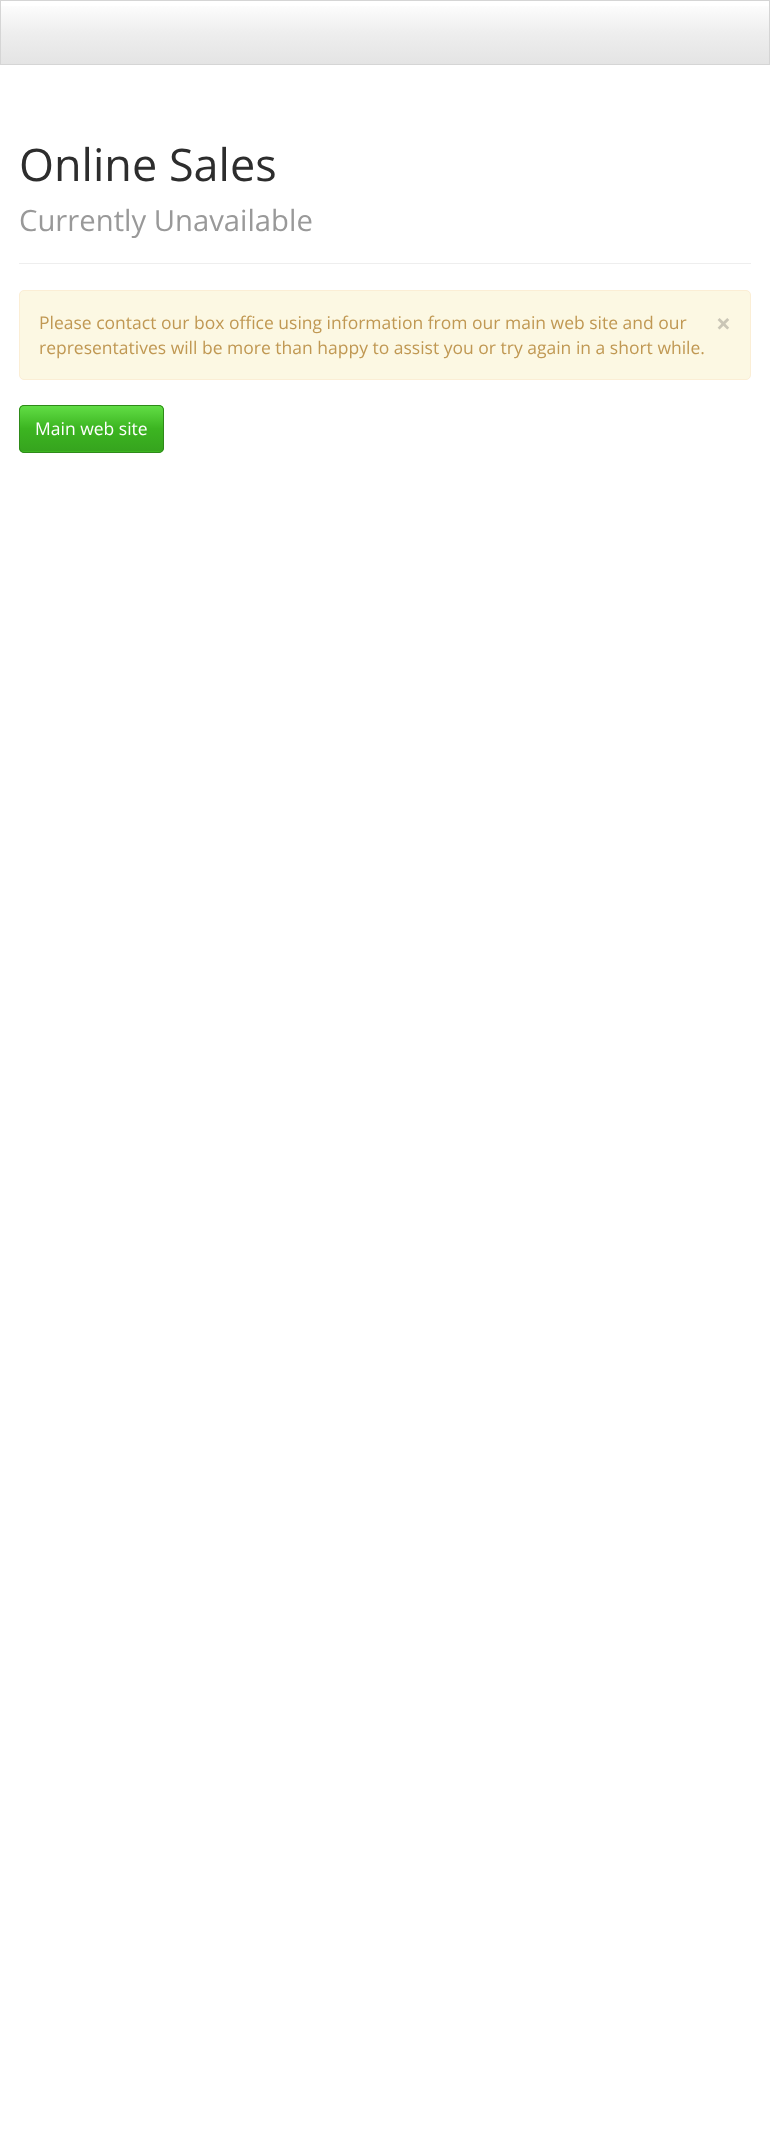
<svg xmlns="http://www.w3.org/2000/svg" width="770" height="2141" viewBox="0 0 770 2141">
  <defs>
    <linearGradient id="g1" gradientUnits="userSpaceOnUse" x1="385" y1="1.2" x2="385" y2="64"><stop offset="0" stop-color="#ffffff"/><stop offset="0.5" stop-color="#eeeeee"/><stop offset="1" stop-color="#e4e4e4"/></linearGradient>
    <linearGradient id="g2" gradientUnits="userSpaceOnUse" x1="91" y1="406" x2="91" y2="451"><stop offset="0" stop-color="#61dd45"/><stop offset="0.5" stop-color="#3cb521"/><stop offset="1" stop-color="#36a41e"/></linearGradient>
  </defs>
  <rect width="100%" height="100%" fill="#ffffff"/>
  <rect x="1" y="6" width="768" height="58" fill="url(#g1)"/>
  <rect x="0.5" y="0.5" width="769" height="64" fill="none" stroke="#d5d5d5"/>
  <rect x="19" y="263" width="732" height="1" fill="#eeeeee"/>
  <text x="19" y="181" font-family="Open Sans" font-size="45" fill="#2d2d2d">Online Sales</text>
  <text x="19" y="231" font-family="Open Sans" font-size="29.25" fill="#999999">Currently Unavailable</text>
  <rect x="19.5" y="290.5" width="731" height="89" rx="4.5" fill="#fcf8e3" stroke="#fbeed5"/>
  <text x="39" y="329" font-family="Open Sans" font-size="17.5" fill="#c09853">Please contact our box office using information from our main web site and our</text>
  <text x="716" y="333" font-family="Open Sans" font-size="26" font-weight="bold" fill="#cac6b6">×</text>
  <text x="39" y="354" font-family="Open Sans" font-size="17.5" fill="#c09853">representatives will be more than happy to assist you or try again in a short while.</text>
  <rect x="19" y="405" width="145" height="48" rx="5" fill="#3cb521"/>
  <rect x="20" y="406" width="143" height="45" fill="url(#g2)"/>
  <rect x="19.5" y="405.5" width="144" height="47" rx="4.5" fill="none" stroke="#2e8a19"/>
  <text x="35" y="435" font-family="Open Sans" font-size="17.5" fill="#ffffff">Main web site</text>
</svg>
